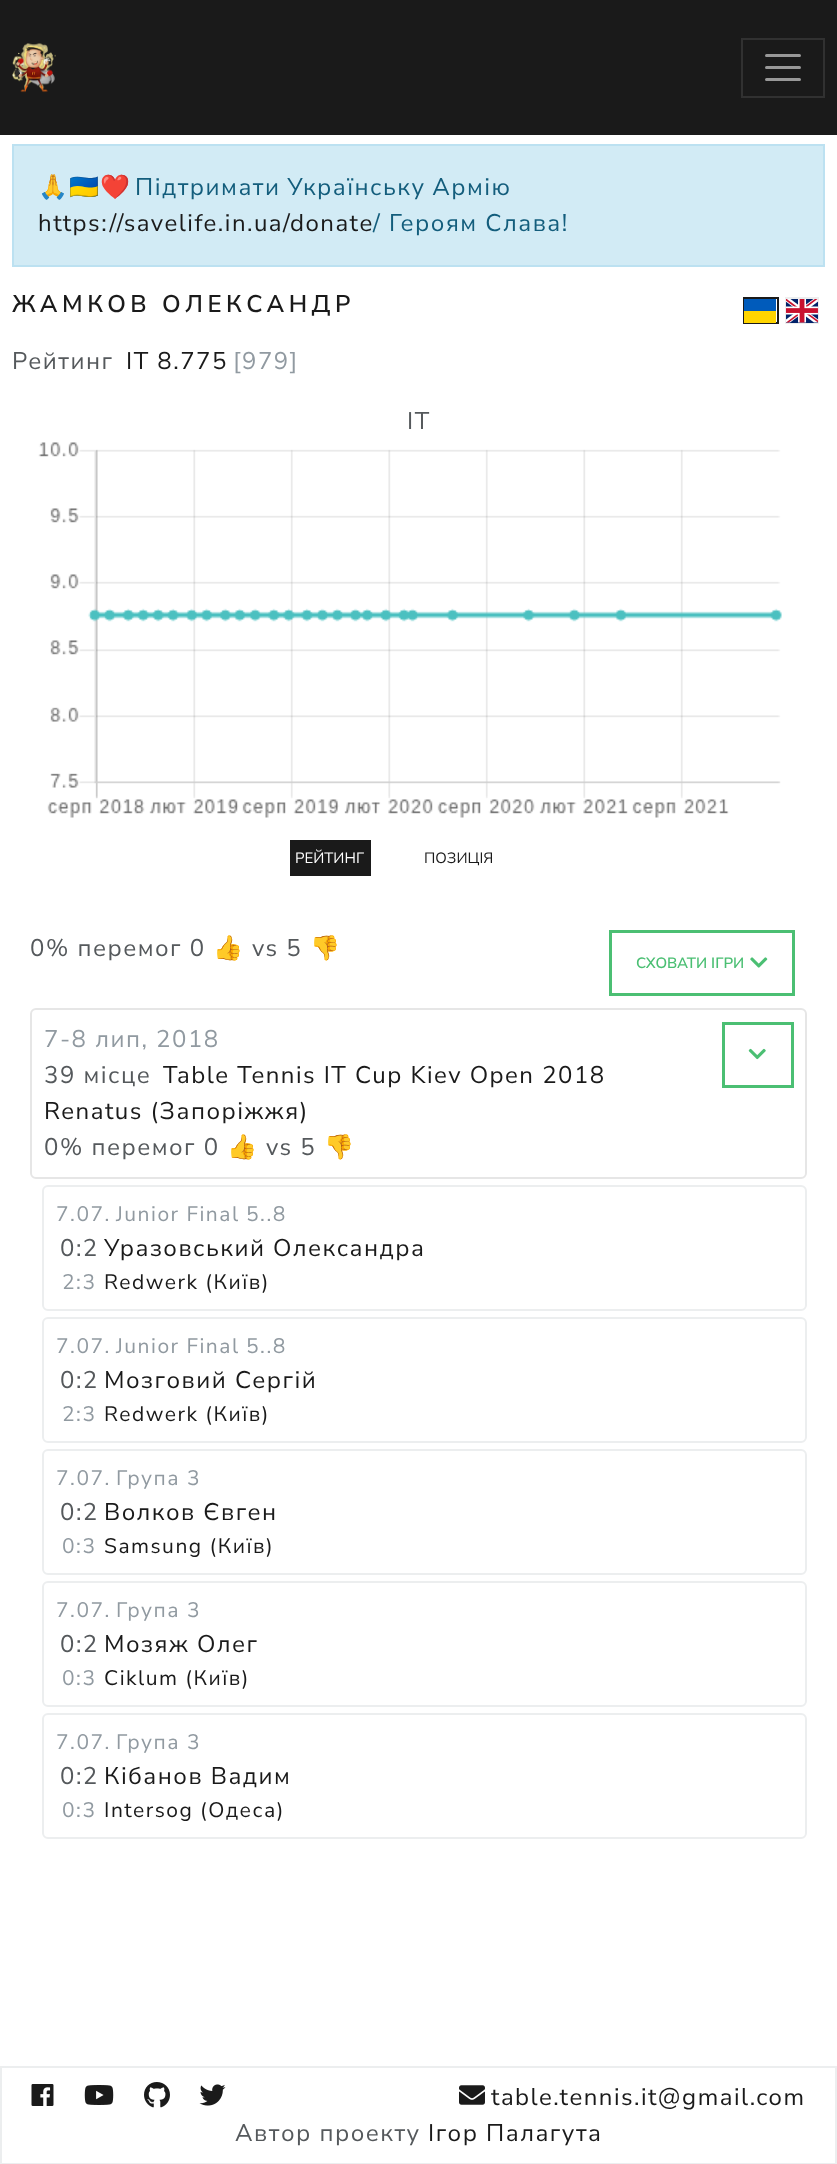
<svg xmlns="http://www.w3.org/2000/svg" width="837" height="2164" viewBox="0 0 837 2164">
  <rect width="100%" height="100%" fill="#ffffff"/>
  <rect x="0" y="0" width="837" height="135" fill="#1a1a1a"/>
  <image x="12" y="43" width="44" height="50" href="img1.png"/>
  <rect x="742" y="39" width="82" height="58" fill="none" stroke="#313131" stroke-width="2"/>
  <path d="M766.5 55.5H799.5M766.5 67.5H799.5M766.5 79.5H799.5" fill="none" stroke="#989898" stroke-width="3" stroke-linecap="round"/>
  <rect x="13" y="145" width="811" height="121" fill="#d2ebf5" stroke="#bce1f1" stroke-width="2"/>
  <text x="38" y="195" font-family="Noto Color Emoji" font-size="24" letter-spacing="1.5" fill="#135d7c">🙏🇺🇦❤️</text>
  <text x="135" y="195" word-spacing="-1" font-family="Nunito Sans" font-size="24" letter-spacing="1.5" fill="#135d7c">Підтримати Українську Армію</text>
  <text x="38" y="231" font-family="Nunito Sans" font-size="24" letter-spacing="1.5" fill="#1a1a1a">https://savelife.in.ua/donate</text>
  <text x="373" y="231" font-family="Nunito Sans" font-size="24" letter-spacing="1.5" fill="#135d7c">/ Героям Слава!</text>
  <text x="12" y="312" font-family="Nunito Sans" font-size="24" font-weight="600" letter-spacing="4.5" fill="#1a1a1a">ЖАМКОВ ОЛЕКСАНДР</text>
  <text x="12" y="369" font-family="Nunito Sans" font-size="24" letter-spacing="1.5" fill="#55595c">Рейтинг</text>
  <text x="126" y="369" font-family="Nunito Sans" font-size="24" letter-spacing="1.5" fill="#1a1a1a">IT 8.775</text>
  <text x="233" y="369" font-family="Nunito Sans" font-size="24" letter-spacing="1.5" fill="#919aa1">[979]</text>
  <text x="407" y="429" font-family="Nunito Sans" font-size="24" letter-spacing="1.5" fill="#55595c">IT</text>
  <image x="38" y="442" width="744" height="376" href="img2.png"/>
  <rect x="290" y="840" width="81" height="36" fill="#1a1a1a"/>
  <text x="295" y="863" font-family="Nunito Sans" font-size="15" fill="#ffffff">РЕЙТИНГ</text>
  <text x="424" y="863" font-family="Nunito Sans" font-size="15" fill="#1a1a1a">ПОЗИЦІЯ</text>
  <text x="30" y="956" font-family="Nunito Sans" font-size="24" letter-spacing="1.5" fill="#55595c">0% перемог 0</text>
  <text x="213" y="956" font-family="Noto Color Emoji" font-size="24" letter-spacing="1.5" fill="#55595c">👍</text>
  <text x="252" y="956" font-family="Nunito Sans" font-size="24" letter-spacing="1.5" fill="#55595c">vs 5</text>
  <text x="310" y="956" font-family="Noto Color Emoji" font-size="24" letter-spacing="1.5" fill="#55595c">👎</text>
  <rect x="610.5" y="931.5" width="183" height="63" fill="none" stroke="#4bbf73" stroke-width="3"/>
  <text x="636" y="968" font-family="Nunito Sans" font-size="15" font-weight="600" fill="#4bbf73">СХОВАТИ ІГРИ</text>
  <image x="750" y="957" width="18" height="11" href="img3.png"/>
  <rect x="31" y="1009" width="775" height="169" rx="5" fill="none" stroke="#e6e6e6" stroke-width="2"/>
  <text x="44" y="1047" font-family="Nunito Sans" font-size="24" letter-spacing="1.5" fill="#919aa1">7-8 лип, 2018</text>
  <text x="44" y="1083" font-family="Nunito Sans" font-size="24" letter-spacing="1.5" fill="#55595c">39 місце</text>
  <text x="163" y="1083" font-family="Nunito Sans" font-size="24" letter-spacing="1.5" fill="#1a1a1a">Table Tennis IT Cup Kiev Open 2018</text>
  <text x="44" y="1119" font-family="Nunito Sans" font-size="24" letter-spacing="1.5" fill="#1a1a1a">Renatus (Запоріжжя)</text>
  <text x="44" y="1155" font-family="Nunito Sans" font-size="24" letter-spacing="1.5" fill="#55595c">0% перемог 0</text>
  <text x="227" y="1155" font-family="Noto Color Emoji" font-size="24" letter-spacing="1.5" fill="#55595c">👍</text>
  <text x="266" y="1155" font-family="Nunito Sans" font-size="24" letter-spacing="1.5" fill="#55595c">vs 5</text>
  <text x="324" y="1155" font-family="Noto Color Emoji" font-size="24" letter-spacing="1.5" fill="#55595c">👎</text>
  <rect x="723.5" y="1023.5" width="69" height="63" fill="none" stroke="#4bbf73" stroke-width="3"/>
  <image x="748" y="1048" width="18" height="12" href="img4.png"/>
  <rect x="43" y="1186" width="763" height="124" rx="5" fill="none" stroke="#eceeef" stroke-width="2"/>
  <text x="56" y="1221" font-family="Nunito Sans" font-size="21" letter-spacing="1.5" fill="#919aa1">7.07.</text>
  <text x="116" y="1221" font-family="Nunito Sans" font-size="21" letter-spacing="1.5" fill="#919aa1">Junior Final</text>
  <text x="246" y="1221" font-family="Nunito Sans" font-size="21" letter-spacing="1.5" fill="#919aa1">5..8</text>
  <text x="60" y="1256" font-family="Nunito Sans" font-size="24" letter-spacing="1.5" fill="#55595c">0:2</text>
  <text x="104" y="1256" font-family="Nunito Sans" font-size="24" letter-spacing="1.5" fill="#1a1a1a">Уразовський Олександра</text>
  <text x="62" y="1289" font-family="Nunito Sans" font-size="21" letter-spacing="1.5" fill="#919aa1">2:3</text>
  <text x="104" y="1289" font-family="Nunito Sans" font-size="21" letter-spacing="1.5" fill="#1a1a1a">Redwerk (Київ)</text>
  <rect x="43" y="1318" width="763" height="124" rx="5" fill="none" stroke="#eceeef" stroke-width="2"/>
  <text x="56" y="1353" font-family="Nunito Sans" font-size="21" letter-spacing="1.5" fill="#919aa1">7.07.</text>
  <text x="116" y="1353" font-family="Nunito Sans" font-size="21" letter-spacing="1.5" fill="#919aa1">Junior Final</text>
  <text x="246" y="1353" font-family="Nunito Sans" font-size="21" letter-spacing="1.5" fill="#919aa1">5..8</text>
  <text x="60" y="1388" font-family="Nunito Sans" font-size="24" letter-spacing="1.5" fill="#55595c">0:2</text>
  <text x="104" y="1388" font-family="Nunito Sans" font-size="24" letter-spacing="1.5" fill="#1a1a1a">Мозговий Сергій</text>
  <text x="62" y="1421" font-family="Nunito Sans" font-size="21" letter-spacing="1.5" fill="#919aa1">2:3</text>
  <text x="104" y="1421" font-family="Nunito Sans" font-size="21" letter-spacing="1.5" fill="#1a1a1a">Redwerk (Київ)</text>
  <rect x="43" y="1450" width="763" height="124" rx="5" fill="none" stroke="#eceeef" stroke-width="2"/>
  <text x="56" y="1485" font-family="Nunito Sans" font-size="21" letter-spacing="1.5" fill="#919aa1">7.07.</text>
  <text x="116" y="1485" font-family="Nunito Sans" font-size="21" letter-spacing="1.5" fill="#919aa1">Група 3</text>
  <text x="60" y="1520" font-family="Nunito Sans" font-size="24" letter-spacing="1.5" fill="#55595c">0:2</text>
  <text x="104" y="1520" font-family="Nunito Sans" font-size="24" letter-spacing="1.5" fill="#1a1a1a">Волков Євген</text>
  <text x="62" y="1553" font-family="Nunito Sans" font-size="21" letter-spacing="1.5" fill="#919aa1">0:3</text>
  <text x="104" y="1553" font-family="Nunito Sans" font-size="21" letter-spacing="1.5" fill="#1a1a1a">Samsung (Київ)</text>
  <rect x="43" y="1582" width="763" height="124" rx="5" fill="none" stroke="#eceeef" stroke-width="2"/>
  <text x="56" y="1617" font-family="Nunito Sans" font-size="21" letter-spacing="1.5" fill="#919aa1">7.07.</text>
  <text x="116" y="1617" font-family="Nunito Sans" font-size="21" letter-spacing="1.5" fill="#919aa1">Група 3</text>
  <text x="60" y="1652" font-family="Nunito Sans" font-size="24" letter-spacing="1.5" fill="#55595c">0:2</text>
  <text x="104" y="1652" font-family="Nunito Sans" font-size="24" letter-spacing="1.5" fill="#1a1a1a">Мозяж Олег</text>
  <text x="62" y="1685" font-family="Nunito Sans" font-size="21" letter-spacing="1.5" fill="#919aa1">0:3</text>
  <text x="104" y="1685" font-family="Nunito Sans" font-size="21" letter-spacing="1.5" fill="#1a1a1a">Ciklum (Київ)</text>
  <rect x="43" y="1714" width="763" height="124" rx="5" fill="none" stroke="#eceeef" stroke-width="2"/>
  <text x="56" y="1749" font-family="Nunito Sans" font-size="21" letter-spacing="1.5" fill="#919aa1">7.07.</text>
  <text x="116" y="1749" font-family="Nunito Sans" font-size="21" letter-spacing="1.5" fill="#919aa1">Група 3</text>
  <text x="60" y="1784" font-family="Nunito Sans" font-size="24" letter-spacing="1.5" fill="#55595c">0:2</text>
  <text x="104" y="1784" font-family="Nunito Sans" font-size="24" letter-spacing="1.5" fill="#1a1a1a">Кібанов Вадим</text>
  <text x="62" y="1817" font-family="Nunito Sans" font-size="21" letter-spacing="1.5" fill="#919aa1">0:3</text>
  <text x="104" y="1817" font-family="Nunito Sans" font-size="21" letter-spacing="1.5" fill="#1a1a1a">Intersog (Одеса)</text>
  <rect x="744" y="298" width="34" height="25" fill="none" stroke="#1a1a1a" stroke-width="2"/>
  <rect x="744" y="311" width="32" height="12" fill="#ffd500"/>
  <rect x="744" y="299" width="32" height="12" fill="#005bbb"/>
  <rect x="786" y="298" width="32" height="25" fill="none" stroke="#eceeef" stroke-width="2"/>
  <image x="786" y="299" width="32" height="24" href="img5.png"/>
  <rect x="1" y="2067" width="835" height="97" fill="none" stroke="#eceeef" stroke-width="2"/>
  <image x="31" y="2084" width="23" height="22" href="img6.png"/>
  <image x="84" y="2085" width="30" height="20" href="img7.png"/>
  <image x="144" y="2082" width="26" height="26" href="img8.png"/>
  <image x="199" y="2084" width="27" height="22" href="img9.png"/>
  <image x="459" y="2085" width="26" height="20" href="img10.png"/>
  <text x="491" y="2105" font-family="Nunito Sans" font-size="24" letter-spacing="1.5" fill="#1a1a1a">table.tennis.it@gmail.com</text>
  <text x="235" y="2141" font-family="Nunito Sans" font-size="24" letter-spacing="1.5" fill="#55595c">Автор проекту</text>
  <text x="428" y="2141" font-family="Nunito Sans" font-size="24" letter-spacing="1.5" fill="#1a1a1a">Ігор Палагута</text>
</svg>
